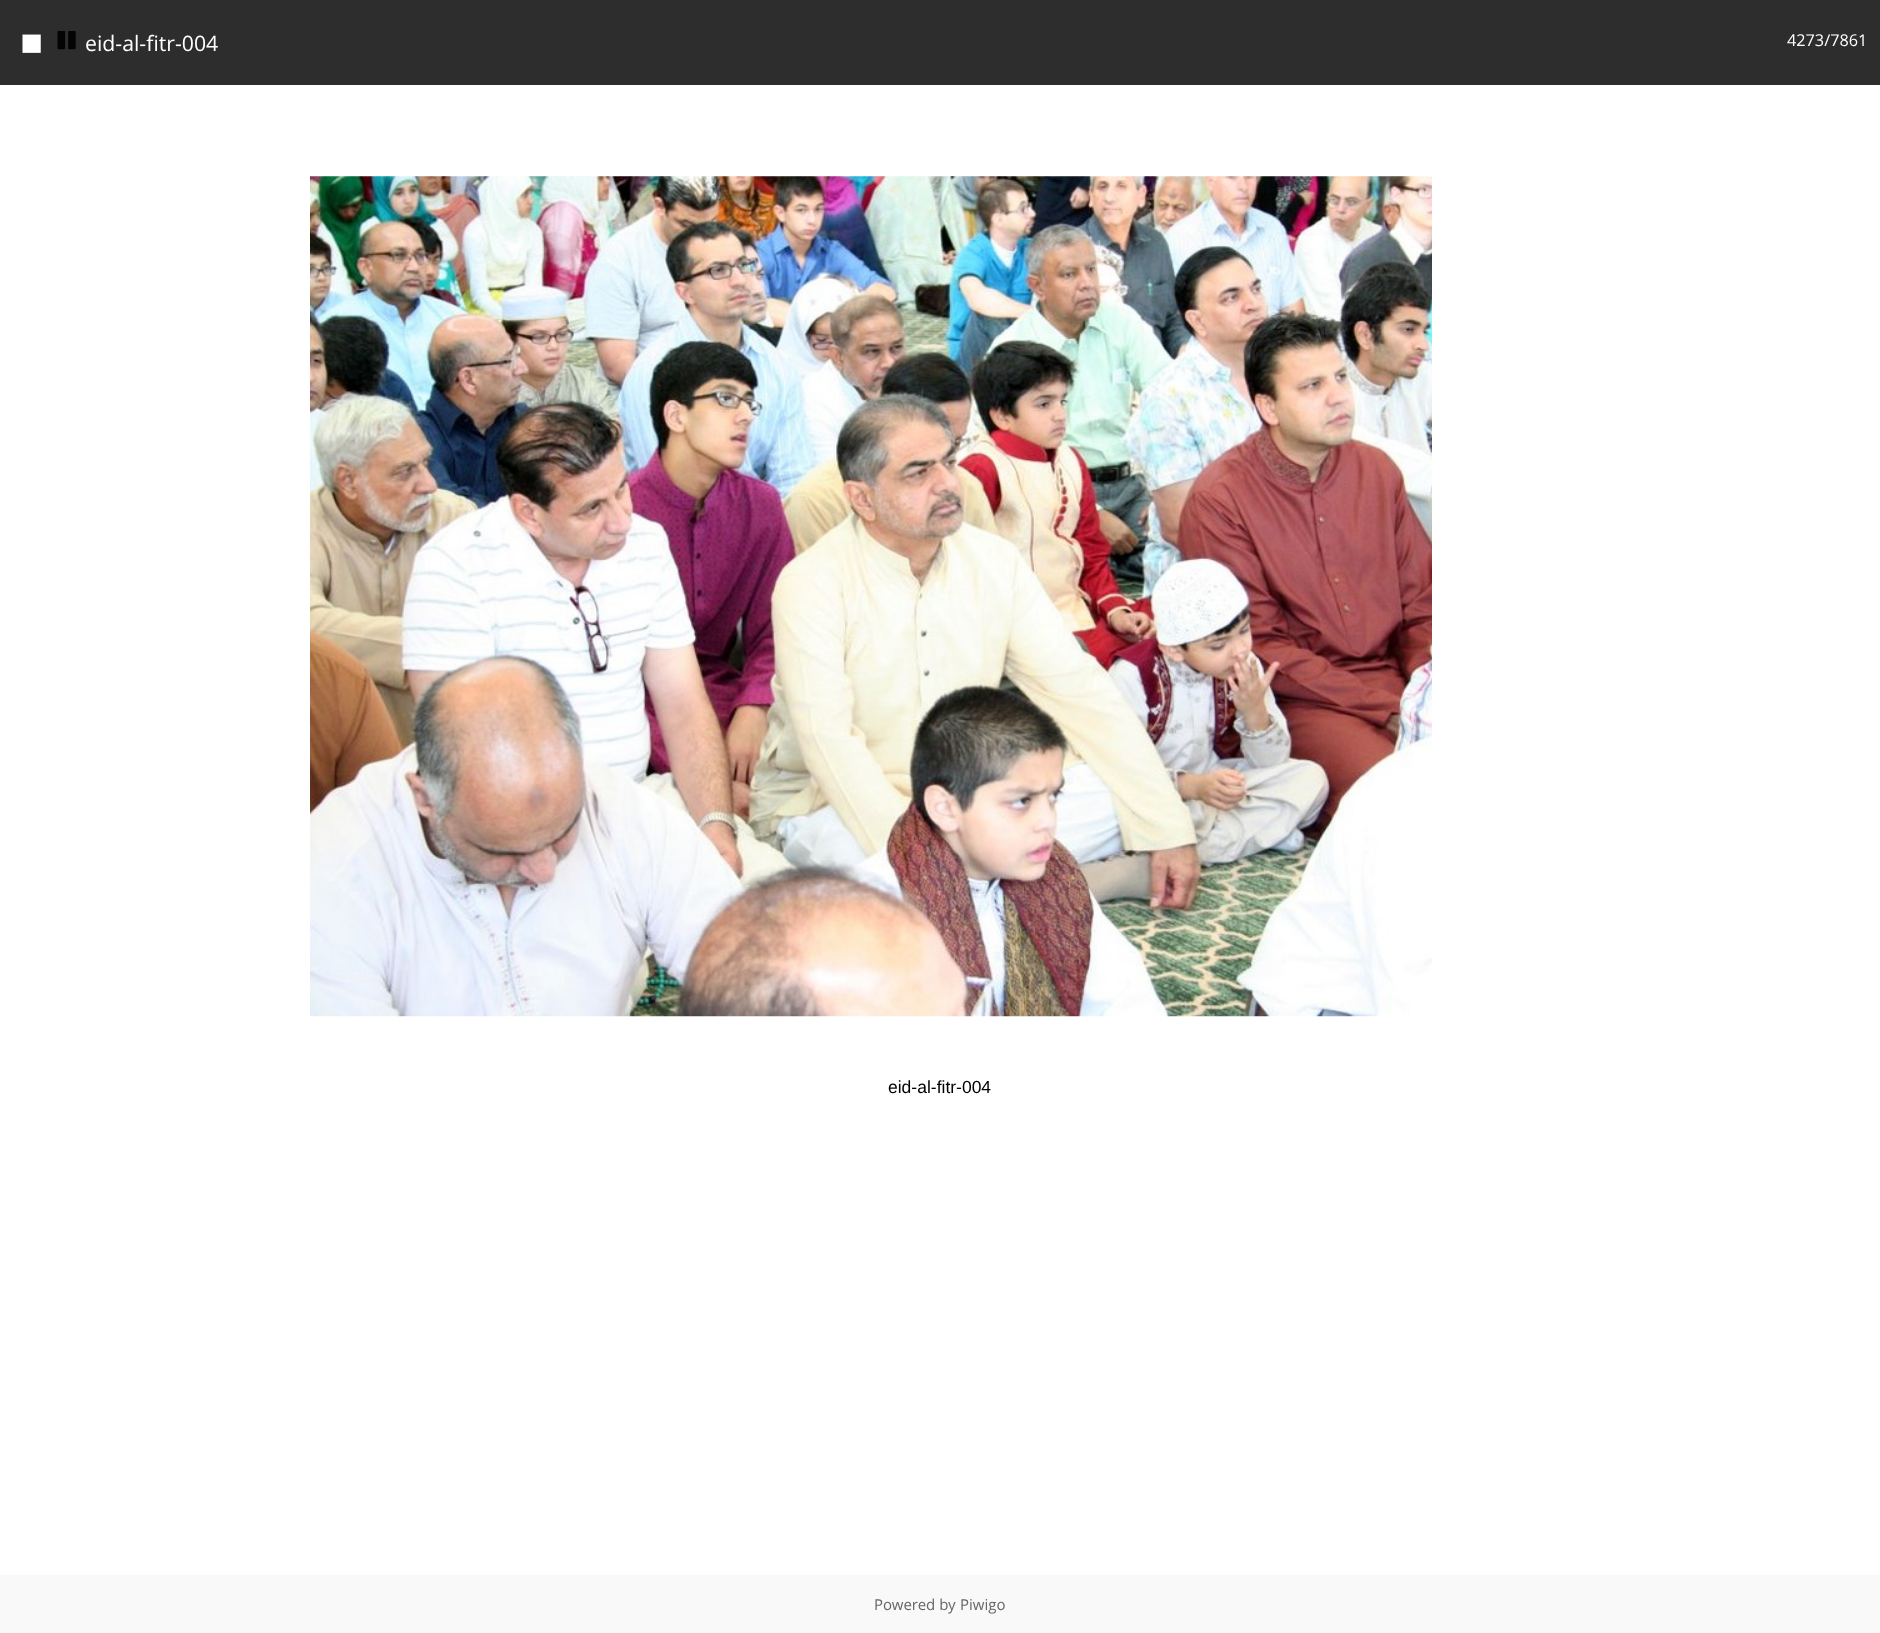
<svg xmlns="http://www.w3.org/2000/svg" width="1880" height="1633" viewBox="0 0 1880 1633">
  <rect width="100%" height="100%" fill="#ffffff"/>
  <rect x="0" y="0" width="1880" height="85" fill="#2d2d2d"/>
  <text x="20" y="51" font-family="DejaVu Sans" font-size="28" fill="#ffffff">◼</text>
  <image x="57" y="31" width="19" height="19" href="img1.png"/>
  <text x="85" y="51" font-family="Open Sans" font-size="21.25" fill="#ffffff">eid-al-fitr-004</text>
  <text x="1787" y="46" font-family="Open Sans" font-size="16.25" fill="#ffffff">4273/7861</text>
  <image x="310" y="176" width="1122" height="841" href="img2.png"/>
  <text x="888" y="1093" font-family="Liberation Sans" font-size="17.5" fill="#000000">eid-al-fitr-004</text>
  <rect x="0" y="1575" width="1880" height="58" fill="#f9f9f9"/>
  <text x="874" y="1610" font-family="Open Sans" font-size="15" fill="#666666">Powered by</text>
  <text x="960" y="1610" font-family="Open Sans" font-size="15" fill="#666666">Piwigo</text>
</svg>
